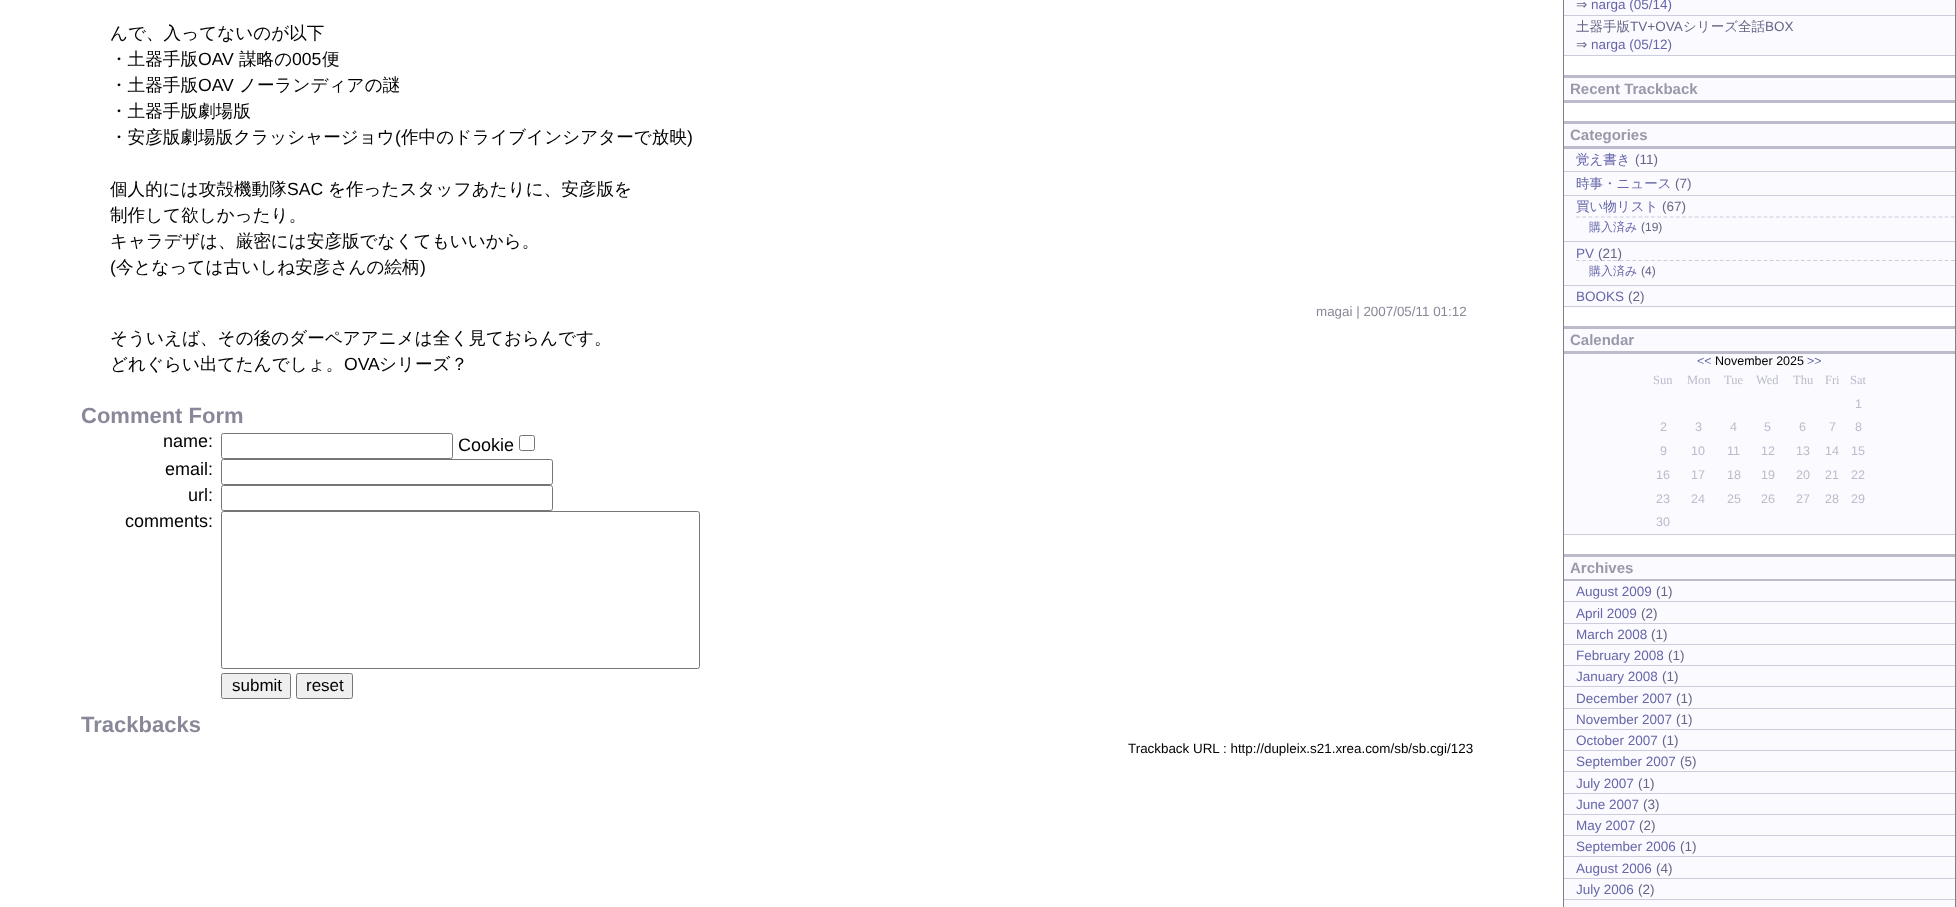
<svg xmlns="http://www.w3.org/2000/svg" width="1956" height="907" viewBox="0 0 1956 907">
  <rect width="100%" height="100%" fill="#ffffff"/>
  <text x="110" y="39" font-family="WenQuanYi Zen Hei" font-size="17.6" font-weight="500" fill="#000000">んで、入ってないのが以下</text>
  <text x="110" y="65" font-family="WenQuanYi Zen Hei" font-size="17.6" font-weight="500" fill="#000000">・土器手版</text>
  <text x="198" y="65" font-family="Liberation Sans" font-size="17.6" fill="#000000">OAV</text>
  <text x="239" y="65" font-family="WenQuanYi Zen Hei" font-size="17.6" font-weight="500" fill="#000000">謀略の</text>
  <text x="292" y="65" font-family="Liberation Sans" font-size="17.6" fill="#000000">005</text>
  <text x="322" y="65" font-family="WenQuanYi Zen Hei" font-size="17.6" font-weight="500" fill="#000000">便</text>
  <text x="110" y="91" font-family="WenQuanYi Zen Hei" font-size="17.6" font-weight="500" fill="#000000">・土器手版</text>
  <text x="198" y="91" font-family="Liberation Sans" font-size="17.6" fill="#000000">OAV</text>
  <text x="239" y="91" font-family="WenQuanYi Zen Hei" font-size="17.6" font-weight="500" fill="#000000">ノーランディアの謎</text>
  <text x="110" y="117" font-family="WenQuanYi Zen Hei" font-size="17.6" font-weight="500" fill="#000000">・土器手版劇場版</text>
  <text x="110" y="143" font-family="WenQuanYi Zen Hei" font-size="17.6" font-weight="500" fill="#000000">・安彦版劇場版クラッシャージョウ</text>
  <text x="395" y="143" font-family="Liberation Sans" font-size="17.6" fill="#000000">(</text>
  <text x="401" y="143" font-family="WenQuanYi Zen Hei" font-size="17.6" font-weight="500" fill="#000000">作中のドライブインシアターで放映</text>
  <text x="687" y="143" font-family="Liberation Sans" font-size="17.6" fill="#000000">)</text>
  <text x="110" y="195" font-family="WenQuanYi Zen Hei" font-size="17.6" font-weight="500" fill="#000000">個人的には攻殻機動隊</text>
  <text x="287" y="195" font-family="Liberation Sans" font-size="17.6" fill="#000000">SAC</text>
  <text x="328" y="195" font-family="WenQuanYi Zen Hei" font-size="17.6" font-weight="500" fill="#000000">を作ったスタッフあたりに、安彦版を</text>
  <text x="110" y="221" font-family="WenQuanYi Zen Hei" font-size="17.6" font-weight="500" fill="#000000">制作して欲しかったり。</text>
  <text x="110" y="247" font-family="WenQuanYi Zen Hei" font-size="17.6" font-weight="500" fill="#000000">キャラデザは、厳密には安彦版でなくてもいいから。</text>
  <text x="110" y="273" font-family="Liberation Sans" font-size="17.6" fill="#000000">(</text>
  <text x="116" y="273" font-family="WenQuanYi Zen Hei" font-size="17.6" font-weight="500" fill="#000000">今となっては古いしね安彦さんの絵柄</text>
  <text x="420" y="273" font-family="Liberation Sans" font-size="17.6" fill="#000000">)</text>
  <text x="1316" y="316" font-family="Liberation Sans" font-size="13.4" fill="#888899">magai | 2007/05/11 01:12</text>
  <text x="110" y="344" font-family="WenQuanYi Zen Hei" font-size="17.6" font-weight="500" fill="#000000">そういえば、その後のダーペアアニメは全く見ておらんです。</text>
  <text x="110" y="370" font-family="WenQuanYi Zen Hei" font-size="17.6" font-weight="500" fill="#000000">どれぐらい出てたんでしょ。</text>
  <text x="344" y="370" font-family="Liberation Sans" font-size="17.6" fill="#000000">OVA</text>
  <text x="379" y="370" font-family="WenQuanYi Zen Hei" font-size="17.6" font-weight="500" fill="#000000">シリーズ？</text>
  <text x="81" y="423" font-family="Liberation Sans" font-size="22" font-weight="bold" fill="#888899">Comment Form</text>
  <text x="163" y="447" font-family="Liberation Sans" font-size="18" fill="#000000">name:</text>
  <rect x="221.5" y="433.5" width="231" height="25" rx="2" fill="none" stroke="#767676"/>
  <text x="458" y="451" font-family="Liberation Sans" font-size="18" fill="#000000">Cookie</text>
  <rect x="519.5" y="435.5" width="15" height="15" rx="2" fill="none" stroke="#767676"/>
  <text x="165" y="475" font-family="Liberation Sans" font-size="18" fill="#000000">email:</text>
  <rect x="221.5" y="459.5" width="331" height="25" rx="2" fill="none" stroke="#767676"/>
  <text x="188" y="501" font-family="Liberation Sans" font-size="18" fill="#000000">url:</text>
  <rect x="221.5" y="485.5" width="331" height="25" rx="2" fill="none" stroke="#767676"/>
  <text x="125" y="527" font-family="Liberation Sans" font-size="18" fill="#000000">comments:</text>
  <rect x="221.5" y="511.5" width="478" height="157" rx="2" fill="none" stroke="#767676"/>
  <rect x="221.5" y="673.5" width="69" height="25" rx="2" fill="#efefef" stroke="#767676"/>
  <text x="232" y="691" font-family="Liberation Sans" font-size="17" fill="#000000">submit</text>
  <rect x="296.5" y="673.5" width="56" height="25" rx="2" fill="#efefef" stroke="#767676"/>
  <text x="306" y="691" font-family="Liberation Sans" font-size="17" fill="#000000">reset</text>
  <text x="81" y="732" font-family="Liberation Sans" font-size="22" font-weight="bold" fill="#888899">Trackbacks</text>
  <text x="1128" y="753" font-family="Liberation Sans" font-size="13.4" fill="#000000">Trackback URL : http://dupleix.s21.xrea.com/sb/sb.cgi/123</text>
  <rect x="1955" y="0" width="1" height="907" fill="#808080"/>
  <rect x="1563" y="0" width="1" height="907" fill="#808080"/>
  <rect x="1564" y="0" width="391" height="15" fill="#fafaff"/>
  <rect x="1564" y="15" width="391" height="1" fill="#ccccdd"/>
  <text x="1576" y="9" font-family="DejaVu Sans" font-size="13.5" fill="#666688">⇒</text>
  <text x="1591" y="9" font-family="Liberation Sans" font-size="13.5" fill="#6666aa">narga (05/14)</text>
  <rect x="1564" y="16" width="391" height="39" fill="#fafaff"/>
  <rect x="1564" y="55" width="391" height="1" fill="#ccccdd"/>
  <text x="1576" y="31" font-family="WenQuanYi Zen Hei" font-size="13.5" font-weight="500" fill="#666688">土器手版</text>
  <text x="1630" y="31" font-family="Liberation Sans" font-size="13.5" fill="#666688">TV+OVA</text>
  <text x="1683" y="31" font-family="WenQuanYi Zen Hei" font-size="13.5" font-weight="500" fill="#666688">シリーズ全話</text>
  <text x="1765" y="31" font-family="Liberation Sans" font-size="13.5" fill="#666688">BOX</text>
  <text x="1576" y="49" font-family="DejaVu Sans" font-size="13.5" fill="#666688">⇒</text>
  <text x="1591" y="49" font-family="Liberation Sans" font-size="13.5" fill="#6666aa">narga (05/12)</text>
  <rect x="1564" y="78" width="391" height="22" fill="#fafaff"/>
  <rect x="1564" y="75" width="391" height="3" fill="#bbbbcc"/>
  <rect x="1564" y="100" width="391" height="3" fill="#bbbbcc"/>
  <text x="1570" y="94" font-family="Liberation Sans" font-size="15" font-weight="bold" fill="#9999aa">Recent Trackback</text>
  <rect x="1564" y="124" width="391" height="22" fill="#fafaff"/>
  <rect x="1564" y="121" width="391" height="3" fill="#bbbbcc"/>
  <rect x="1564" y="146" width="391" height="3" fill="#bbbbcc"/>
  <text x="1570" y="140" font-family="Liberation Sans" font-size="15" font-weight="bold" fill="#9999aa">Categories</text>
  <rect x="1564" y="149" width="391" height="46" fill="#fafaff"/>
  <rect x="1564" y="171" width="391" height="1" fill="#ccccdd"/>
  <text x="1576" y="164" font-family="WenQuanYi Zen Hei" font-size="13.5" font-weight="500" fill="#6666aa">覚え書き</text>
  <text x="1635" y="164" font-family="Liberation Sans" font-size="13.5" fill="#666688">(11)</text>
  <rect x="1564" y="195" width="391" height="1" fill="#ccccdd"/>
  <text x="1576" y="188" font-family="WenQuanYi Zen Hei" font-size="13.5" font-weight="500" fill="#6666aa">時事・ニュース</text>
  <text x="1675" y="188" font-family="Liberation Sans" font-size="13.5" fill="#666688">(7)</text>
  <rect x="1564" y="196" width="391" height="89" fill="#fafaff"/>
  <rect x="1564" y="241" width="391" height="1" fill="#ccccdd"/>
  <text x="1576" y="211" font-family="WenQuanYi Zen Hei" font-size="13.5" font-weight="500" fill="#6666aa">買い物リスト</text>
  <text x="1662" y="211" font-family="Liberation Sans" font-size="13.5" fill="#666688">(67)</text>
  <path d="M1576 217H1955" fill="none" stroke="#ccccdd" stroke-width="1.2" stroke-dasharray="3.75 2.5"/>
  <text x="1589" y="231" font-family="WenQuanYi Zen Hei" font-size="12" font-weight="500" fill="#6666aa">購入済み</text>
  <text x="1641" y="231" font-family="Liberation Sans" font-size="12" fill="#666688">(19)</text>
  <rect x="1564" y="285" width="391" height="1" fill="#ccccdd"/>
  <text x="1576" y="258" font-family="Liberation Sans" font-size="13.5" fill="#6666aa">PV</text>
  <path d="M1576 260.5H1955" fill="none" stroke="#ccccdd" stroke-width="1.2" stroke-dasharray="3.75 2.5"/>
  <text x="1598" y="258" font-family="Liberation Sans" font-size="13.5" fill="#666688">(21)</text>
  <text x="1589" y="275" font-family="WenQuanYi Zen Hei" font-size="12" font-weight="500" fill="#6666aa">購入済み</text>
  <text x="1641" y="275" font-family="Liberation Sans" font-size="12" fill="#666688">(4)</text>
  <rect x="1564" y="286" width="391" height="22" fill="#fafaff"/>
  <rect x="1564" y="306" width="391" height="1" fill="#ccccdd"/>
  <text x="1576" y="301" font-family="Liberation Sans" font-size="13.5" fill="#6666aa">BOOKS</text>
  <text x="1628" y="301" font-family="Liberation Sans" font-size="13.5" fill="#666688">(2)</text>
  <rect x="1564" y="329" width="391" height="205" fill="#fafaff"/>
  <rect x="1564" y="534" width="391" height="1" fill="#ccccdd"/>
  <rect x="1564" y="326" width="391" height="3" fill="#bbbbcc"/>
  <rect x="1564" y="351" width="391" height="3" fill="#bbbbcc"/>
  <text x="1570" y="345" font-family="Liberation Sans" font-size="15" font-weight="bold" fill="#9999aa">Calendar</text>
  <text x="1697" y="365" font-family="Liberation Sans" font-size="12.5" fill="#6666aa">&lt;&lt;</text>
  <text x="1715" y="365" font-family="Liberation Sans" font-size="12.5" fill="#000000">November 2025</text>
  <text x="1807" y="365" font-family="Liberation Sans" font-size="12.5" fill="#6666aa">&gt;&gt;</text>
  <text x="1653" y="384" font-family="Liberation Serif" font-size="12.5" fill="#bbbbcc">Sun</text>
  <text x="1687" y="384" font-family="Liberation Serif" font-size="12.5" fill="#bbbbcc">Mon</text>
  <text x="1724" y="384" font-family="Liberation Serif" font-size="12.5" fill="#bbbbcc">Tue</text>
  <text x="1756" y="384" font-family="Liberation Serif" font-size="12.5" fill="#bbbbcc">Wed</text>
  <text x="1793" y="384" font-family="Liberation Serif" font-size="12.5" fill="#bbbbcc">Thu</text>
  <text x="1825" y="384" font-family="Liberation Serif" font-size="12.5" fill="#bbbbcc">Fri</text>
  <text x="1850" y="384" font-family="Liberation Serif" font-size="12.5" fill="#bbbbcc">Sat</text>
  <text x="1855" y="408" font-family="Liberation Sans" font-size="12.5" fill="#bbbbcc">1</text>
  <text x="1660" y="431" font-family="Liberation Sans" font-size="12.5" fill="#bbbbcc">2</text>
  <text x="1695" y="431" font-family="Liberation Sans" font-size="12.5" fill="#bbbbcc">3</text>
  <text x="1730" y="431" font-family="Liberation Sans" font-size="12.5" fill="#bbbbcc">4</text>
  <text x="1764" y="431" font-family="Liberation Sans" font-size="12.5" fill="#bbbbcc">5</text>
  <text x="1799" y="431" font-family="Liberation Sans" font-size="12.5" fill="#bbbbcc">6</text>
  <text x="1829" y="431" font-family="Liberation Sans" font-size="12.5" fill="#bbbbcc">7</text>
  <text x="1855" y="431" font-family="Liberation Sans" font-size="12.5" fill="#bbbbcc">8</text>
  <text x="1660" y="455" font-family="Liberation Sans" font-size="12.5" fill="#bbbbcc">9</text>
  <text x="1691" y="455" font-family="Liberation Sans" font-size="12.5" fill="#bbbbcc">10</text>
  <text x="1727" y="455" font-family="Liberation Sans" font-size="12.5" fill="#bbbbcc">11</text>
  <text x="1761" y="455" font-family="Liberation Sans" font-size="12.5" fill="#bbbbcc">12</text>
  <text x="1796" y="455" font-family="Liberation Sans" font-size="12.5" fill="#bbbbcc">13</text>
  <text x="1825" y="455" font-family="Liberation Sans" font-size="12.5" fill="#bbbbcc">14</text>
  <text x="1851" y="455" font-family="Liberation Sans" font-size="12.5" fill="#bbbbcc">15</text>
  <text x="1656" y="479" font-family="Liberation Sans" font-size="12.5" fill="#bbbbcc">16</text>
  <text x="1691" y="479" font-family="Liberation Sans" font-size="12.5" fill="#bbbbcc">17</text>
  <text x="1727" y="479" font-family="Liberation Sans" font-size="12.5" fill="#bbbbcc">18</text>
  <text x="1761" y="479" font-family="Liberation Sans" font-size="12.5" fill="#bbbbcc">19</text>
  <text x="1796" y="479" font-family="Liberation Sans" font-size="12.5" fill="#bbbbcc">20</text>
  <text x="1825" y="479" font-family="Liberation Sans" font-size="12.5" fill="#bbbbcc">21</text>
  <text x="1851" y="479" font-family="Liberation Sans" font-size="12.5" fill="#bbbbcc">22</text>
  <text x="1656" y="503" font-family="Liberation Sans" font-size="12.5" fill="#bbbbcc">23</text>
  <text x="1691" y="503" font-family="Liberation Sans" font-size="12.5" fill="#bbbbcc">24</text>
  <text x="1727" y="503" font-family="Liberation Sans" font-size="12.5" fill="#bbbbcc">25</text>
  <text x="1761" y="503" font-family="Liberation Sans" font-size="12.5" fill="#bbbbcc">26</text>
  <text x="1796" y="503" font-family="Liberation Sans" font-size="12.5" fill="#bbbbcc">27</text>
  <text x="1825" y="503" font-family="Liberation Sans" font-size="12.5" fill="#bbbbcc">28</text>
  <text x="1851" y="503" font-family="Liberation Sans" font-size="12.5" fill="#bbbbcc">29</text>
  <text x="1656" y="526" font-family="Liberation Sans" font-size="12.5" fill="#bbbbcc">30</text>
  <rect x="1564" y="557" width="391" height="22" fill="#fafaff"/>
  <rect x="1564" y="554" width="391" height="3" fill="#bbbbcc"/>
  <rect x="1564" y="579" width="391" height="2" fill="#bbbbcc"/>
  <text x="1570" y="573" font-family="Liberation Sans" font-size="15" font-weight="bold" fill="#9999aa">Archives</text>
  <rect x="1564" y="581" width="391" height="42" fill="#fafaff"/>
  <rect x="1564" y="601" width="391" height="1" fill="#ccccdd"/>
  <text x="1576" y="596" font-family="Liberation Sans" font-size="13.5" fill="#6666aa">August 2009</text>
  <text x="1656" y="596" font-family="Liberation Sans" font-size="13.5" fill="#666688">(1)</text>
  <rect x="1564" y="623" width="391" height="1" fill="#ccccdd"/>
  <text x="1576" y="618" font-family="Liberation Sans" font-size="13.5" fill="#6666aa">April 2009</text>
  <text x="1641" y="618" font-family="Liberation Sans" font-size="13.5" fill="#666688">(2)</text>
  <rect x="1564" y="624" width="391" height="20" fill="#fafaff"/>
  <rect x="1564" y="644" width="391" height="1" fill="#ccccdd"/>
  <text x="1576" y="639" font-family="Liberation Sans" font-size="13.5" fill="#6666aa">March 2008</text>
  <text x="1651" y="639" font-family="Liberation Sans" font-size="13.5" fill="#666688">(1)</text>
  <rect x="1564" y="645" width="391" height="20" fill="#fafaff"/>
  <rect x="1564" y="665" width="391" height="1" fill="#ccccdd"/>
  <text x="1576" y="660" font-family="Liberation Sans" font-size="13.5" fill="#6666aa">February 2008</text>
  <text x="1668" y="660" font-family="Liberation Sans" font-size="13.5" fill="#666688">(1)</text>
  <rect x="1564" y="666" width="391" height="42" fill="#fafaff"/>
  <rect x="1564" y="686" width="391" height="1" fill="#ccccdd"/>
  <text x="1576" y="681" font-family="Liberation Sans" font-size="13.5" fill="#6666aa">January 2008</text>
  <text x="1662" y="681" font-family="Liberation Sans" font-size="13.5" fill="#666688">(1)</text>
  <rect x="1564" y="708" width="391" height="1" fill="#ccccdd"/>
  <text x="1576" y="703" font-family="Liberation Sans" font-size="13.5" fill="#6666aa">December 2007</text>
  <text x="1676" y="703" font-family="Liberation Sans" font-size="13.5" fill="#666688">(1)</text>
  <rect x="1564" y="709" width="391" height="20" fill="#fafaff"/>
  <rect x="1564" y="729" width="391" height="1" fill="#ccccdd"/>
  <text x="1576" y="724" font-family="Liberation Sans" font-size="13.5" fill="#6666aa">November 2007</text>
  <text x="1676" y="724" font-family="Liberation Sans" font-size="13.5" fill="#666688">(1)</text>
  <rect x="1564" y="730" width="391" height="20" fill="#fafaff"/>
  <rect x="1564" y="750" width="391" height="1" fill="#ccccdd"/>
  <text x="1576" y="745" font-family="Liberation Sans" font-size="13.5" fill="#6666aa">October 2007</text>
  <text x="1662" y="745" font-family="Liberation Sans" font-size="13.5" fill="#666688">(1)</text>
  <rect x="1564" y="751" width="391" height="42" fill="#fafaff"/>
  <rect x="1564" y="771" width="391" height="1" fill="#ccccdd"/>
  <text x="1576" y="766" font-family="Liberation Sans" font-size="13.5" fill="#6666aa">September 2007</text>
  <text x="1680" y="766" font-family="Liberation Sans" font-size="13.5" fill="#666688">(5)</text>
  <rect x="1564" y="793" width="391" height="1" fill="#ccccdd"/>
  <text x="1576" y="788" font-family="Liberation Sans" font-size="13.5" fill="#6666aa">July 2007</text>
  <text x="1638" y="788" font-family="Liberation Sans" font-size="13.5" fill="#666688">(1)</text>
  <rect x="1564" y="794" width="391" height="20" fill="#fafaff"/>
  <rect x="1564" y="814" width="391" height="1" fill="#ccccdd"/>
  <text x="1576" y="809" font-family="Liberation Sans" font-size="13.5" fill="#6666aa">June 2007</text>
  <text x="1643" y="809" font-family="Liberation Sans" font-size="13.5" fill="#666688">(3)</text>
  <rect x="1564" y="815" width="391" height="20" fill="#fafaff"/>
  <rect x="1564" y="835" width="391" height="1" fill="#ccccdd"/>
  <text x="1576" y="830" font-family="Liberation Sans" font-size="13.5" fill="#6666aa">May 2007</text>
  <text x="1639" y="830" font-family="Liberation Sans" font-size="13.5" fill="#666688">(2)</text>
  <rect x="1564" y="836" width="391" height="42" fill="#fafaff"/>
  <rect x="1564" y="856" width="391" height="1" fill="#ccccdd"/>
  <text x="1576" y="851" font-family="Liberation Sans" font-size="13.5" fill="#6666aa">September 2006</text>
  <text x="1680" y="851" font-family="Liberation Sans" font-size="13.5" fill="#666688">(1)</text>
  <rect x="1564" y="878" width="391" height="1" fill="#ccccdd"/>
  <text x="1576" y="873" font-family="Liberation Sans" font-size="13.5" fill="#6666aa">August 2006</text>
  <text x="1656" y="873" font-family="Liberation Sans" font-size="13.5" fill="#666688">(4)</text>
  <rect x="1564" y="879" width="391" height="20" fill="#fafaff"/>
  <rect x="1564" y="899" width="391" height="1" fill="#ccccdd"/>
  <text x="1576" y="894" font-family="Liberation Sans" font-size="13.5" fill="#6666aa">July 2006</text>
  <text x="1638" y="894" font-family="Liberation Sans" font-size="13.5" fill="#666688">(2)</text>
  <rect x="1564" y="900" width="391" height="7" fill="#fafaff"/>
</svg>
